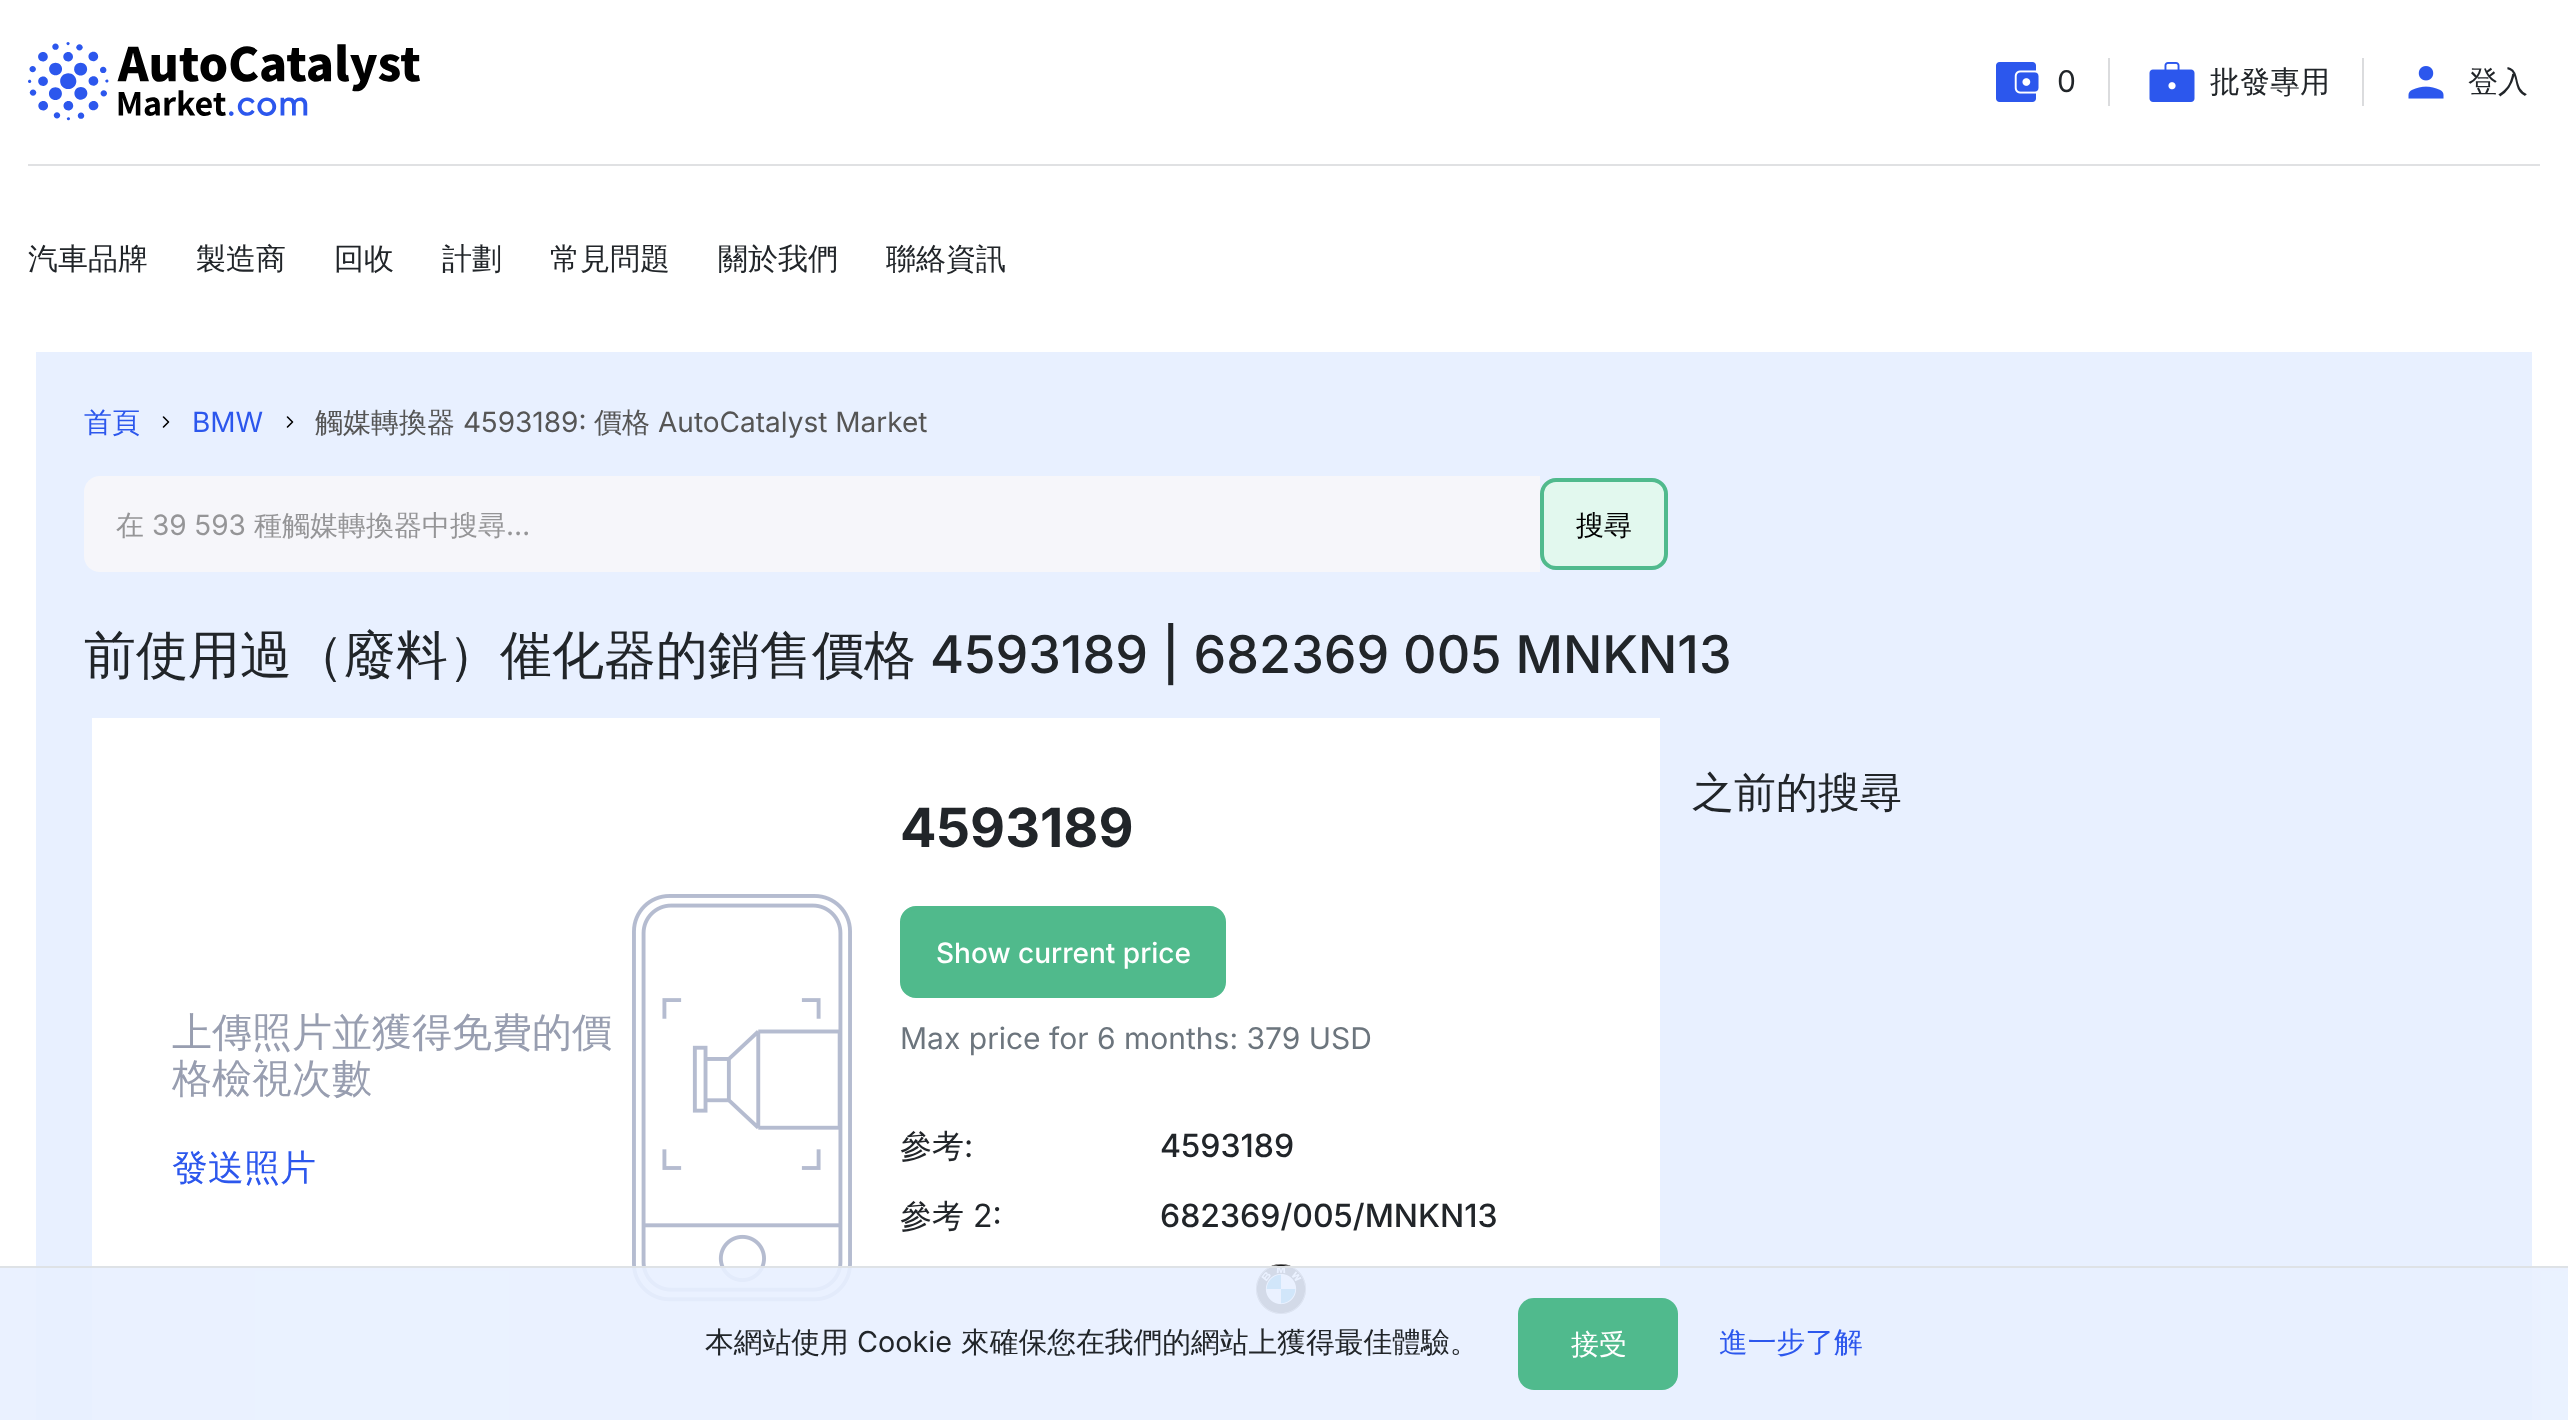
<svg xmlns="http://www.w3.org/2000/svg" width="2568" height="1420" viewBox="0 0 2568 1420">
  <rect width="100%" height="100%" fill="#ffffff"/>
  <image x="28" y="42" width="392" height="79" href="img1.png"/>
  <rect x="2108" y="58" width="2" height="48" fill="#dbdcde"/>
  <image x="1996" y="62" width="43" height="40" href="img2.png"/>
  <text x="2057" y="92" font-family="Inter" font-size="30" fill="#212529">0</text>
  <rect x="2362" y="58" width="2" height="48" fill="#dbdcde"/>
  <image x="2149" y="62" width="46" height="40" href="img3.png"/>
  <text x="2210" y="92" font-family="WenQuanYi Zen Hei" font-size="30" font-weight="500" fill="#212529">批發專用</text>
  <image x="2408" y="66" width="36" height="33" href="img4.png"/>
  <text x="2468" y="92" font-family="WenQuanYi Zen Hei" font-size="30" font-weight="500" fill="#212529">登入</text>
  <rect x="28" y="164" width="2512" height="2" fill="#e0e1e3"/>
  <text x="28" y="269" font-family="WenQuanYi Zen Hei" font-size="30" font-weight="500" fill="#212529">汽車品牌</text>
  <text x="196" y="269" font-family="WenQuanYi Zen Hei" font-size="30" font-weight="500" fill="#212529">製造商</text>
  <text x="334" y="269" font-family="WenQuanYi Zen Hei" font-size="30" font-weight="500" fill="#212529">回收</text>
  <text x="442" y="269" font-family="WenQuanYi Zen Hei" font-size="30" font-weight="500" fill="#212529">計劃</text>
  <text x="550" y="269" font-family="WenQuanYi Zen Hei" font-size="30" font-weight="500" fill="#212529">常見問題</text>
  <text x="718" y="269" font-family="WenQuanYi Zen Hei" font-size="30" font-weight="500" fill="#212529">關於我們</text>
  <text x="886" y="269" font-family="WenQuanYi Zen Hei" font-size="30" font-weight="500" fill="#212529">聯絡資訊</text>
  <rect x="36" y="352" width="2496" height="1068" fill="#e8f0ff"/>
  <text x="84" y="432" font-family="WenQuanYi Zen Hei" font-size="28" font-weight="500" fill="#2c57ed">首頁</text>
  <image x="162" y="416" width="8" height="12" href="img5.png"/>
  <text x="192" y="432" font-family="Inter" font-size="28" fill="#2c57ed">BMW</text>
  <image x="286" y="416" width="8" height="12" href="img5.png"/>
  <text x="315" y="432" font-family="WenQuanYi Zen Hei" font-size="28" font-weight="500" fill="#555555">觸媒轉換器</text>
  <text x="463" y="432" font-family="Inter" font-size="28" fill="#555555">4593189:</text>
  <text x="594" y="432" font-family="WenQuanYi Zen Hei" font-size="28" font-weight="500" fill="#555555">價格</text>
  <text x="658" y="432" font-family="Inter" font-size="28" fill="#555555">AutoCatalyst Market</text>
  <path d="M100 476H1540V572H100C91 572 84 565 84 556V492C84 483 91 476 100 476Z" fill="#f6f6fa"/>
  <text x="116" y="535" font-family="WenQuanYi Zen Hei" font-size="28" font-weight="500" fill="#959597">在</text>
  <text x="152" y="535" font-family="Inter" font-size="28" fill="#959597">39 593</text>
  <text x="254" y="535" font-family="WenQuanYi Zen Hei" font-size="28" font-weight="500" fill="#959597">種觸媒轉換器中搜尋</text>
  <text x="506" y="535" font-family="Inter" font-size="28" fill="#959597">…</text>
  <rect x="1542" y="480" width="124" height="88" rx="14" fill="#e2f8ee" stroke="#50ba8d" stroke-width="4"/>
  <text x="1576" y="535" font-family="WenQuanYi Zen Hei" font-size="28" font-weight="500" fill="#000000">搜尋</text>
  <text x="84" y="673" font-family="WenQuanYi Zen Hei" font-size="52" font-weight="500" fill="#212529">前使用過（廢料）催化器的銷售價格</text>
  <text x="930" y="673" font-family="Inter" font-size="52" font-weight="500" fill="#212529">4593189 | 682369 005 MNKN13</text>
  <text x="1692" y="807" font-family="WenQuanYi Zen Hei" font-size="42" font-weight="500" fill="#212529">之前的搜尋</text>
  <rect x="92" y="718" width="1568" height="702" fill="#ffffff"/>
  <text x="172" y="1046" font-family="WenQuanYi Zen Hei" font-size="40" font-weight="500" fill="#989eb0">上傳照片並獲得免費的價</text>
  <text x="172" y="1092" font-family="WenQuanYi Zen Hei" font-size="40" font-weight="500" fill="#989eb0">格檢視次數</text>
  <text x="172" y="1180" font-family="WenQuanYi Zen Hei" font-size="36" font-weight="500" fill="#2c57ed">發送照片</text>
  <image x="632" y="894" width="220" height="408" href="img6.png"/>
  <text x="900" y="847" font-family="Inter" font-size="54" font-weight="bold" fill="#212529">4593189</text>
  <rect x="902" y="908" width="322" height="88" rx="14" fill="#50ba8c" stroke="#50ba8c" stroke-width="4"/>
  <text x="936" y="963" font-family="Inter" font-size="28" font-weight="500" fill="#ffffff">Show current price</text>
  <text x="900" y="1049" font-family="Inter" font-size="30" fill="#6c757d">Max price for 6 months: 379 USD</text>
  <text x="900" y="1157" font-family="WenQuanYi Zen Hei" font-size="32" font-weight="500" fill="#212529">參考</text>
  <text x="964" y="1157" font-family="Inter" font-size="32" fill="#212529">:</text>
  <text x="1160" y="1157" font-family="Inter" font-size="32" font-weight="500" fill="#212529">4593189</text>
  <text x="900" y="1227" font-family="WenQuanYi Zen Hei" font-size="32" font-weight="500" fill="#212529">參考</text>
  <text x="973" y="1227" font-family="Inter" font-size="32" fill="#212529">2:</text>
  <text x="1160" y="1227" font-family="Inter" font-size="32" font-weight="500" fill="#212529">682369/005/MNKN13</text>
  <image x="1256" y="1264" width="50" height="50" href="img7.png"/>
  <rect x="0" y="1268" width="2568" height="152" fill="#e8f0ff" fill-opacity="0.9"/>
  <rect x="0" y="1266" width="2568" height="2" fill="#dee2e6"/>
  <text x="705" y="1352" font-family="WenQuanYi Zen Hei" font-size="28.75" font-weight="500" fill="#212529">本網站使用</text>
  <text x="857" y="1352" font-family="Inter" font-size="28.75" fill="#212529">Cookie</text>
  <text x="961" y="1352" font-family="WenQuanYi Zen Hei" font-size="28.75" font-weight="500" fill="#212529">來確保您在我們的網站上獲得最佳體驗。</text>
  <rect x="1518" y="1298" width="160" height="92" rx="16" fill="#50ba8d"/>
  <text x="1571" y="1354" font-family="WenQuanYi Zen Hei" font-size="28" font-weight="500" fill="#ffffff">接受</text>
  <text x="1719" y="1352" font-family="WenQuanYi Zen Hei" font-size="28.75" font-weight="500" fill="#2c57ed">進一步了解</text>
</svg>
